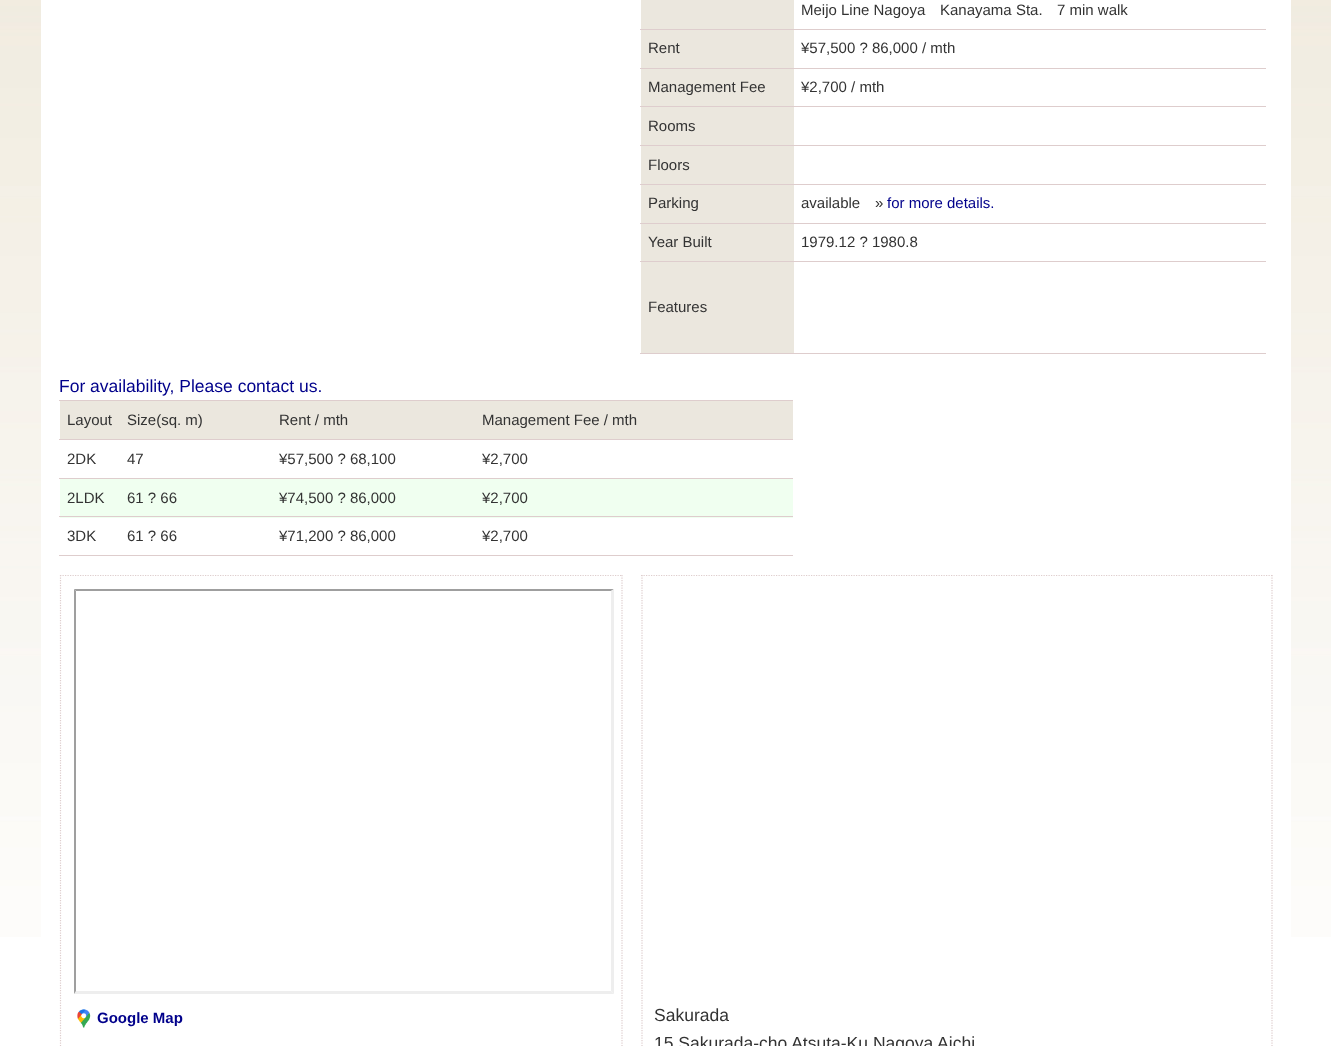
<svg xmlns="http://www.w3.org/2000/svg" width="1331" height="1046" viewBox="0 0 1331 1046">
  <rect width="100%" height="100%" fill="#ffffff"/>
  <image x="0" y="0" width="1331" height="937" href="img1.png"/>
  <rect x="41" y="0" width="1250" height="937" fill="#ffffff"/>
  <rect x="641" y="0" width="153" height="29" fill="#ebe7de"/>
  <text x="801" y="15" font-family="Liberation Sans" font-size="15" fill="#333333">Meijo Line Nagoya</text>
  <text x="940" y="15" font-family="Liberation Sans" font-size="15" fill="#333333">Kanayama Sta.</text>
  <text x="1057" y="15" font-family="Liberation Sans" font-size="15" fill="#333333">7 min walk</text>
  <rect x="641" y="30" width="153" height="38" fill="#ebe7de"/>
  <text x="648" y="53" font-family="Liberation Sans" font-size="15" fill="#333333">Rent</text>
  <rect x="640" y="29" width="626" height="1" fill="#decdcd"/>
  <text x="801" y="53" font-family="Liberation Sans" font-size="15" fill="#333333">¥57,500 ? 86,000 / mth</text>
  <rect x="641" y="69" width="153" height="37" fill="#ebe7de"/>
  <text x="648" y="92" font-family="Liberation Sans" font-size="15" fill="#333333">Management Fee</text>
  <rect x="640" y="68" width="626" height="1" fill="#decdcd"/>
  <text x="801" y="92" font-family="Liberation Sans" font-size="15" fill="#333333">¥2,700 / mth</text>
  <rect x="640" y="106" width="626" height="1" fill="#decdcd"/>
  <rect x="641" y="107" width="153" height="38" fill="#ebe7de"/>
  <text x="648" y="131" font-family="Liberation Sans" font-size="15" fill="#333333">Rooms</text>
  <rect x="640" y="145" width="626" height="1" fill="#decdcd"/>
  <rect x="641" y="146" width="153" height="38" fill="#ebe7de"/>
  <text x="648" y="170" font-family="Liberation Sans" font-size="15" fill="#333333">Floors</text>
  <rect x="641" y="185" width="153" height="38" fill="#ebe7de"/>
  <text x="648" y="208" font-family="Liberation Sans" font-size="15" fill="#333333">Parking</text>
  <rect x="640" y="184" width="626" height="1" fill="#decdcd"/>
  <text x="801" y="208" font-family="Liberation Sans" font-size="15" fill="#333333">available</text>
  <text x="875" y="208" font-family="Liberation Sans" font-size="15" fill="#333333">»</text>
  <text x="887" y="208" font-family="Liberation Sans" font-size="15" fill="#00008b">for more details.</text>
  <rect x="641" y="224" width="153" height="37" fill="#ebe7de"/>
  <text x="648" y="247" font-family="Liberation Sans" font-size="15" fill="#333333">Year Built</text>
  <rect x="640" y="223" width="626" height="1" fill="#decdcd"/>
  <text x="801" y="247" font-family="Liberation Sans" font-size="15" fill="#333333">1979.12 ? 1980.8</text>
  <rect x="640" y="261" width="626" height="1" fill="#decdcd"/>
  <rect x="640" y="353" width="626" height="1" fill="#decdcd"/>
  <rect x="641" y="262" width="153" height="91" fill="#ebe7de"/>
  <text x="648" y="312" font-family="Liberation Sans" font-size="15" fill="#333333">Features</text>
  <text x="59" y="392" font-family="Liberation Sans" font-size="17.5" fill="#00008b">For availability, Please contact us.</text>
  <rect x="59" y="400" width="734" height="1" fill="#decdcd"/>
  <rect x="60" y="401" width="733" height="38" fill="#ebe7de"/>
  <text x="67" y="425" font-family="Liberation Sans" font-size="15" fill="#333333">Layout</text>
  <text x="127" y="425" font-family="Liberation Sans" font-size="15" fill="#333333">Size(sq. m)</text>
  <text x="279" y="425" font-family="Liberation Sans" font-size="15" fill="#333333">Rent / mth</text>
  <text x="482" y="425" font-family="Liberation Sans" font-size="15" fill="#333333">Management Fee / mth</text>
  <rect x="59" y="439" width="734" height="1" fill="#decdcd"/>
  <text x="67" y="464" font-family="Liberation Sans" font-size="15" fill="#333333">2DK</text>
  <text x="127" y="464" font-family="Liberation Sans" font-size="15" fill="#333333">47</text>
  <text x="279" y="464" font-family="Liberation Sans" font-size="15" fill="#333333">¥57,500 ? 68,100</text>
  <text x="482" y="464" font-family="Liberation Sans" font-size="15" fill="#333333">¥2,700</text>
  <rect x="59" y="478" width="734" height="1" fill="#decdcd"/>
  <rect x="60" y="479" width="733" height="39" fill="#f0fff0"/>
  <text x="67" y="503" font-family="Liberation Sans" font-size="15" fill="#333333">2LDK</text>
  <text x="127" y="503" font-family="Liberation Sans" font-size="15" fill="#333333">61 ? 66</text>
  <text x="279" y="503" font-family="Liberation Sans" font-size="15" fill="#333333">¥74,500 ? 86,000</text>
  <text x="482" y="503" font-family="Liberation Sans" font-size="15" fill="#333333">¥2,700</text>
  <rect x="59" y="516" width="734" height="1" fill="#decdcd"/>
  <rect x="59" y="555" width="734" height="1" fill="#decdcd"/>
  <text x="67" y="541" font-family="Liberation Sans" font-size="15" fill="#333333">3DK</text>
  <text x="127" y="541" font-family="Liberation Sans" font-size="15" fill="#333333">61 ? 66</text>
  <text x="279" y="541" font-family="Liberation Sans" font-size="15" fill="#333333">¥71,200 ? 86,000</text>
  <text x="482" y="541" font-family="Liberation Sans" font-size="15" fill="#333333">¥2,700</text>
  <path d="M60 575.5H622.5" fill="none" stroke="#decdcd" stroke-width="1.2" stroke-dasharray="1.25 1.25"/>
  <path d="M622 575V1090" fill="none" stroke="#decdcd" stroke-width="1.2" stroke-dasharray="1.25 1.25"/>
  <path d="M60.5 575V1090" fill="none" stroke="#decdcd" stroke-width="1.2" stroke-dasharray="1.25 1.25"/>
  <path d="M74 589H614L611 591H76Z" fill="#9f9f9f"/>
  <path d="M614 589V994L611 991V591Z" fill="#eeeeee"/>
  <path d="M614 994H74L76 991H611Z" fill="#eeeeee"/>
  <path d="M74 994V589L76 591V991Z" fill="#9f9f9f"/>
  <image x="77" y="1009" width="14" height="19" href="img2.png"/>
  <text x="97" y="1023" font-family="Liberation Sans" font-size="15" font-weight="bold" fill="#00008b">Google Map</text>
  <path d="M641 575.5H1272.5" fill="none" stroke="#decdcd" stroke-width="1.2" stroke-dasharray="1.25 1.25"/>
  <path d="M1272 575V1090" fill="none" stroke="#decdcd" stroke-width="1.2" stroke-dasharray="1.25 1.25"/>
  <path d="M642 575V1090" fill="none" stroke="#decdcd" stroke-width="1.2" stroke-dasharray="1.25 1.25"/>
  <text x="654" y="1021" font-family="Liberation Sans" font-size="17.5" fill="#333333">Sakurada</text>
  <text x="654" y="1049" font-family="Liberation Sans" font-size="17.5" fill="#333333">15 Sakurada-cho Atsuta-Ku Nagoya Aichi</text>
</svg>
